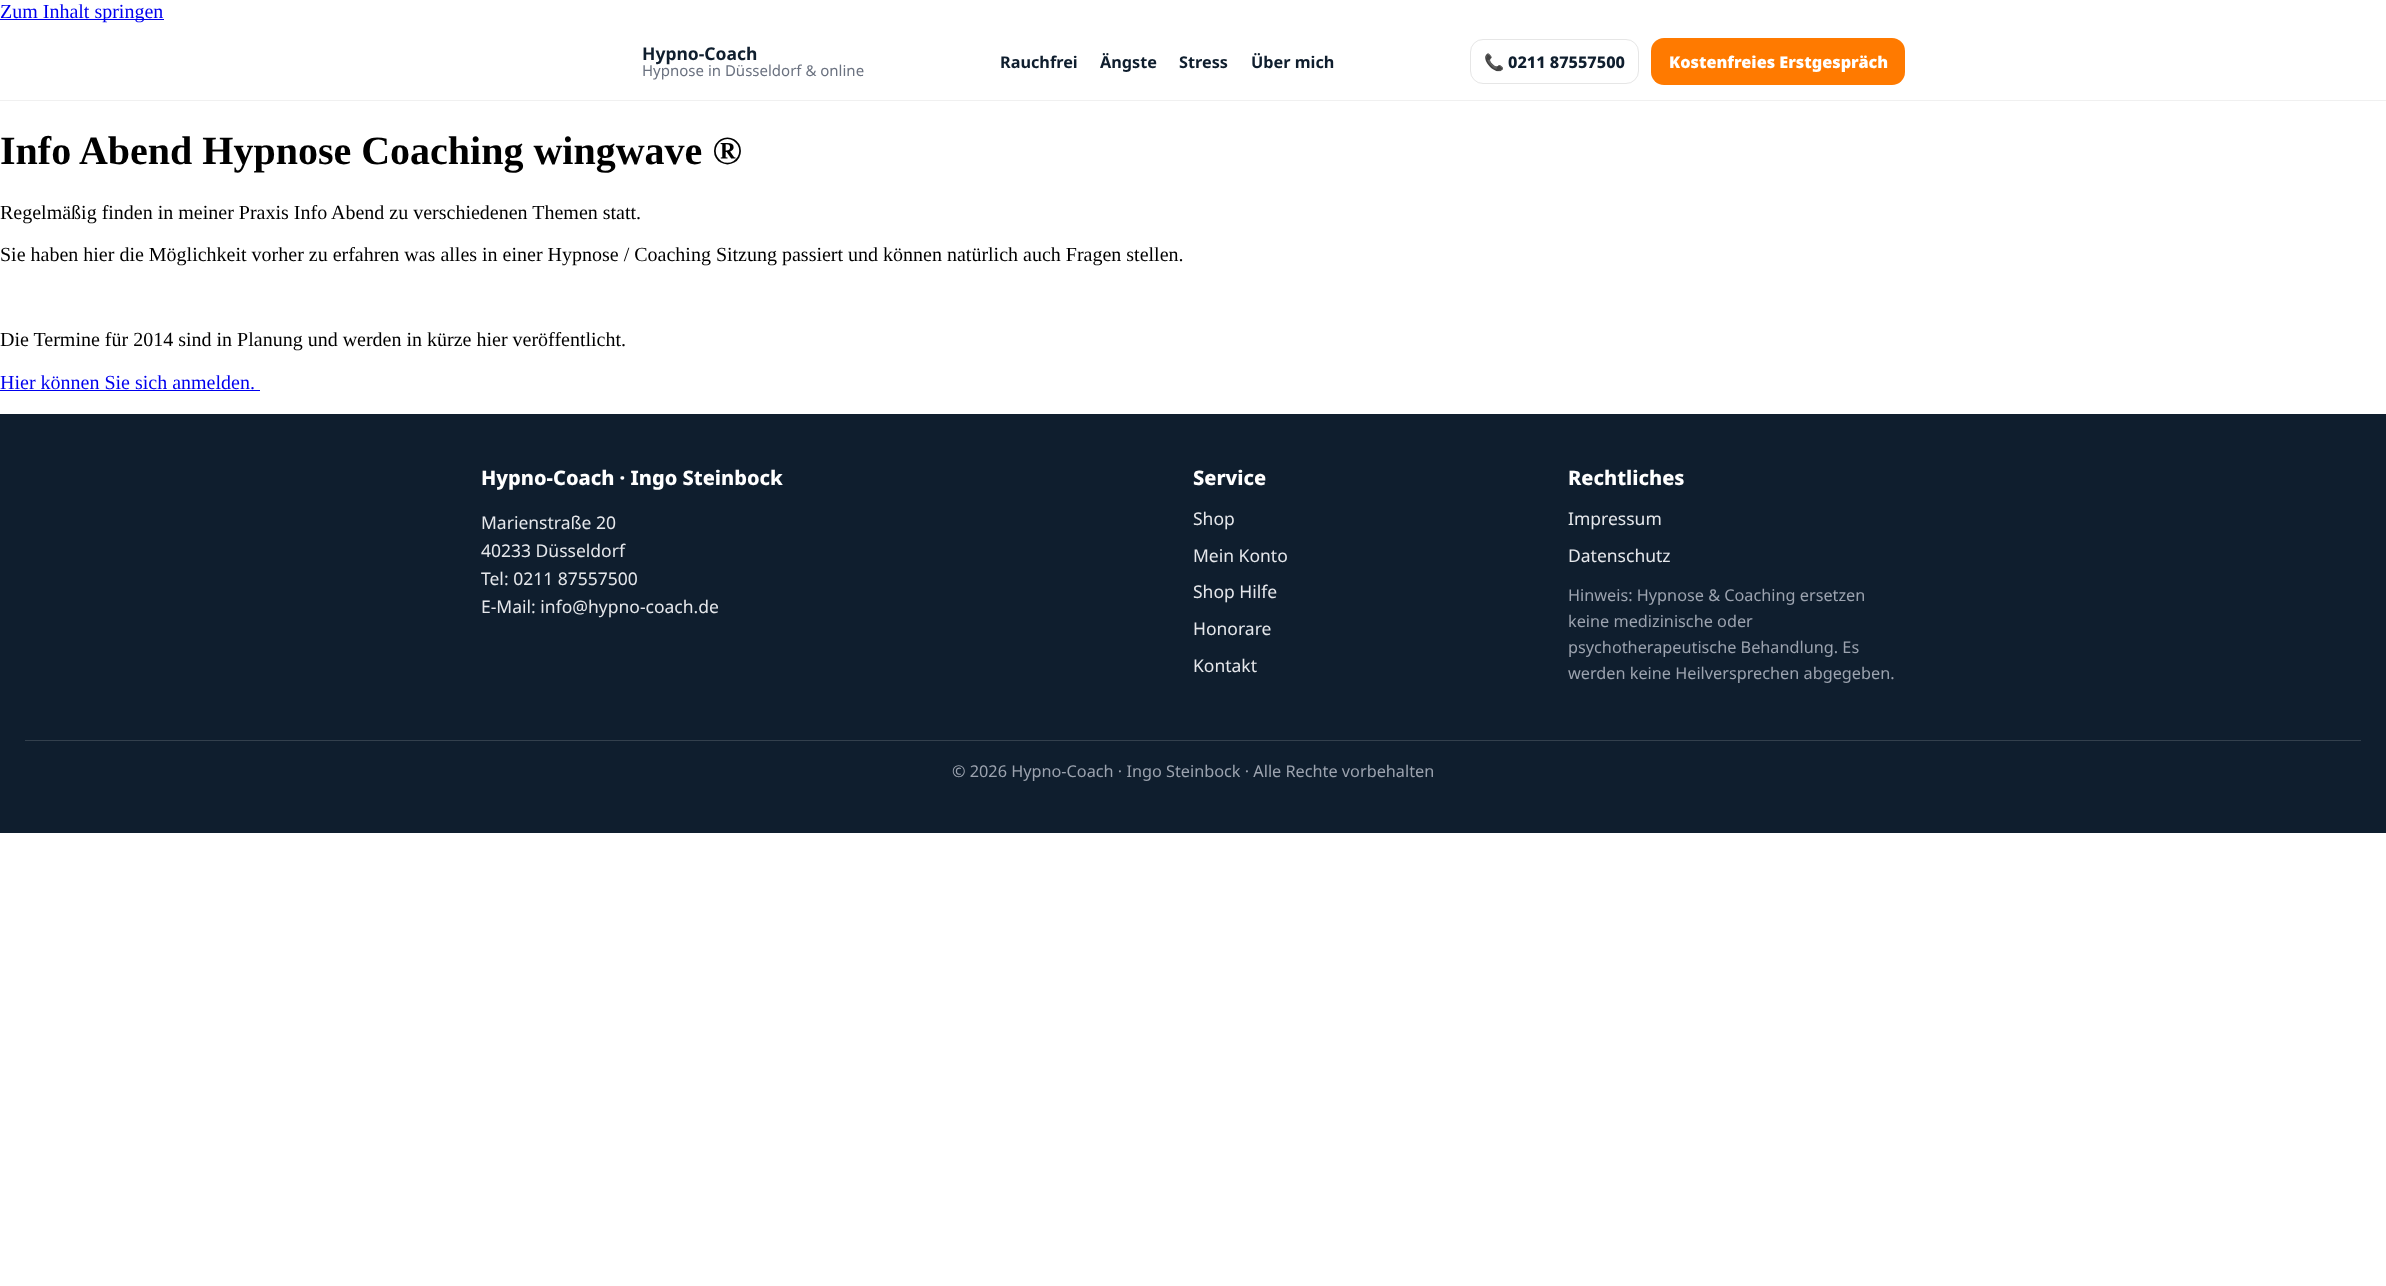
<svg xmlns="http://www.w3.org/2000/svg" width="2386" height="1286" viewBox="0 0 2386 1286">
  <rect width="100%" height="100%" fill="#ffffff"/>
  <rect x="0" y="19" width="164" height="1" fill="#0000ee"/>
  <text x="0" y="18" font-family="Liberation Serif" font-size="20" fill="#0000ee">Zum Inhalt springen</text>
  <rect x="0" y="100" width="2386" height="1" fill="#f0f0f0"/>
  <text x="642" y="60" font-family="Noto Sans" font-size="17.5" font-weight="bold" fill="#0f1e2e">Hypno-Coach</text>
  <text x="642" y="76" font-family="Noto Sans" font-size="15" fill="#6b7280">Hypnose in Düsseldorf &amp; online</text>
  <text x="1000" y="68" font-family="Noto Sans" font-size="16.25" font-weight="bold" fill="#0f1e2e">Rauchfrei</text>
  <text x="1100" y="68" font-family="Noto Sans" font-size="16.25" font-weight="bold" fill="#0f1e2e">Ängste</text>
  <text x="1179" y="68" font-family="Noto Sans" font-size="16.25" font-weight="bold" fill="#0f1e2e">Stress</text>
  <text x="1251" y="68" font-family="Noto Sans" font-size="16.25" font-weight="bold" fill="#0f1e2e">Über mich</text>
  <rect x="1470.5" y="39.5" width="168" height="44" rx="12.5" fill="none" stroke="#e6e6e6"/>
  <text x="1484" y="68" font-family="Noto Color Emoji" font-size="16.25" font-weight="bold" fill="#0f1e2e">📞</text>
  <text x="1508" y="68" font-family="Noto Sans" font-size="16.25" font-weight="800" fill="#0f1e2e">0211 87557500</text>
  <rect x="1651" y="38" width="254" height="47" rx="13" fill="#ff7a00"/>
  <text x="1669" y="68" font-family="Noto Sans" font-size="16.25" font-weight="900" fill="#ffffff">Kostenfreies Erstgespräch</text>
  <text x="0" y="164" font-family="Liberation Serif" font-size="40" font-weight="bold" fill="#000000">Info Abend Hypnose Coaching wingwave ®</text>
  <text x="0" y="219" font-family="Liberation Serif" font-size="20" fill="#000000">Regelmäßig finden in meiner Praxis Info Abend zu verschiedenen Themen statt.</text>
  <text x="0" y="261" font-family="Liberation Serif" font-size="20" fill="#000000">Sie haben hier die Möglichkeit vorher zu erfahren was alles in einer Hypnose / Coaching Sitzung passiert und können natürlich auch Fragen stellen.</text>
  <text x="0" y="346" font-family="Liberation Serif" font-size="20" fill="#000000">Die Termine für 2014 sind in Planung und werden in kürze hier veröffentlicht.</text>
  <text x="0" y="389" font-family="Liberation Serif" font-size="20" fill="#0000ee">Hier können Sie sich anmelden.</text>
  <rect x="0" y="390" width="260" height="1" fill="#0000ee"/>
  <rect x="0" y="414" width="2386" height="419" fill="#0f1e2e"/>
  <text x="481" y="485" font-family="Noto Sans" font-size="20" font-weight="800" fill="#ffffff">Hypno-Coach · Ingo Steinbock</text>
  <text x="481" y="529" font-family="Noto Sans" font-size="17.5" fill="#e5e7eb">Marienstraße 20</text>
  <text x="481" y="557" font-family="Noto Sans" font-size="17.5" fill="#e5e7eb">40233 Düsseldorf</text>
  <text x="481" y="585" font-family="Noto Sans" font-size="17.5" fill="#e5e7eb">Tel: 0211 87557500</text>
  <text x="481" y="613" font-family="Noto Sans" font-size="17.5" fill="#e5e7eb">E-Mail: info@hypno-coach.de</text>
  <text x="1193" y="485" font-family="Noto Sans" font-size="20" font-weight="800" fill="#ffffff">Service</text>
  <text x="1193" y="525" font-family="Noto Sans" font-size="17.5" fill="#e5e7eb">Shop</text>
  <text x="1193" y="562" font-family="Noto Sans" font-size="17.5" fill="#e5e7eb">Mein Konto</text>
  <text x="1193" y="598" font-family="Noto Sans" font-size="17.5" fill="#e5e7eb">Shop Hilfe</text>
  <text x="1193" y="635" font-family="Noto Sans" font-size="17.5" fill="#e5e7eb">Honorare</text>
  <text x="1193" y="672" font-family="Noto Sans" font-size="17.5" fill="#e5e7eb">Kontakt</text>
  <text x="1568" y="485" font-family="Noto Sans" font-size="20" font-weight="800" fill="#ffffff">Rechtliches</text>
  <text x="1568" y="525" font-family="Noto Sans" font-size="17.5" fill="#e5e7eb">Impressum</text>
  <text x="1568" y="562" font-family="Noto Sans" font-size="17.5" fill="#e5e7eb">Datenschutz</text>
  <text x="1568" y="601" font-family="Noto Sans" font-size="16.25" fill="#9ca3af">Hinweis: Hypnose &amp; Coaching ersetzen</text>
  <text x="1568" y="627" font-family="Noto Sans" font-size="16.25" fill="#9ca3af">keine medizinische oder</text>
  <text x="1568" y="653" font-family="Noto Sans" font-size="16.25" fill="#9ca3af">psychotherapeutische Behandlung. Es</text>
  <text x="1568" y="679" font-family="Noto Sans" font-size="16.25" fill="#9ca3af">werden keine Heilversprechen abgegeben.</text>
  <rect x="25" y="740" width="2336" height="1" fill="#33404d"/>
  <text x="952" y="777" font-family="Noto Sans" font-size="16.25" fill="#9ca3af">© 2026 Hypno-Coach · Ingo Steinbock · Alle Rechte vorbehalten</text>
</svg>
